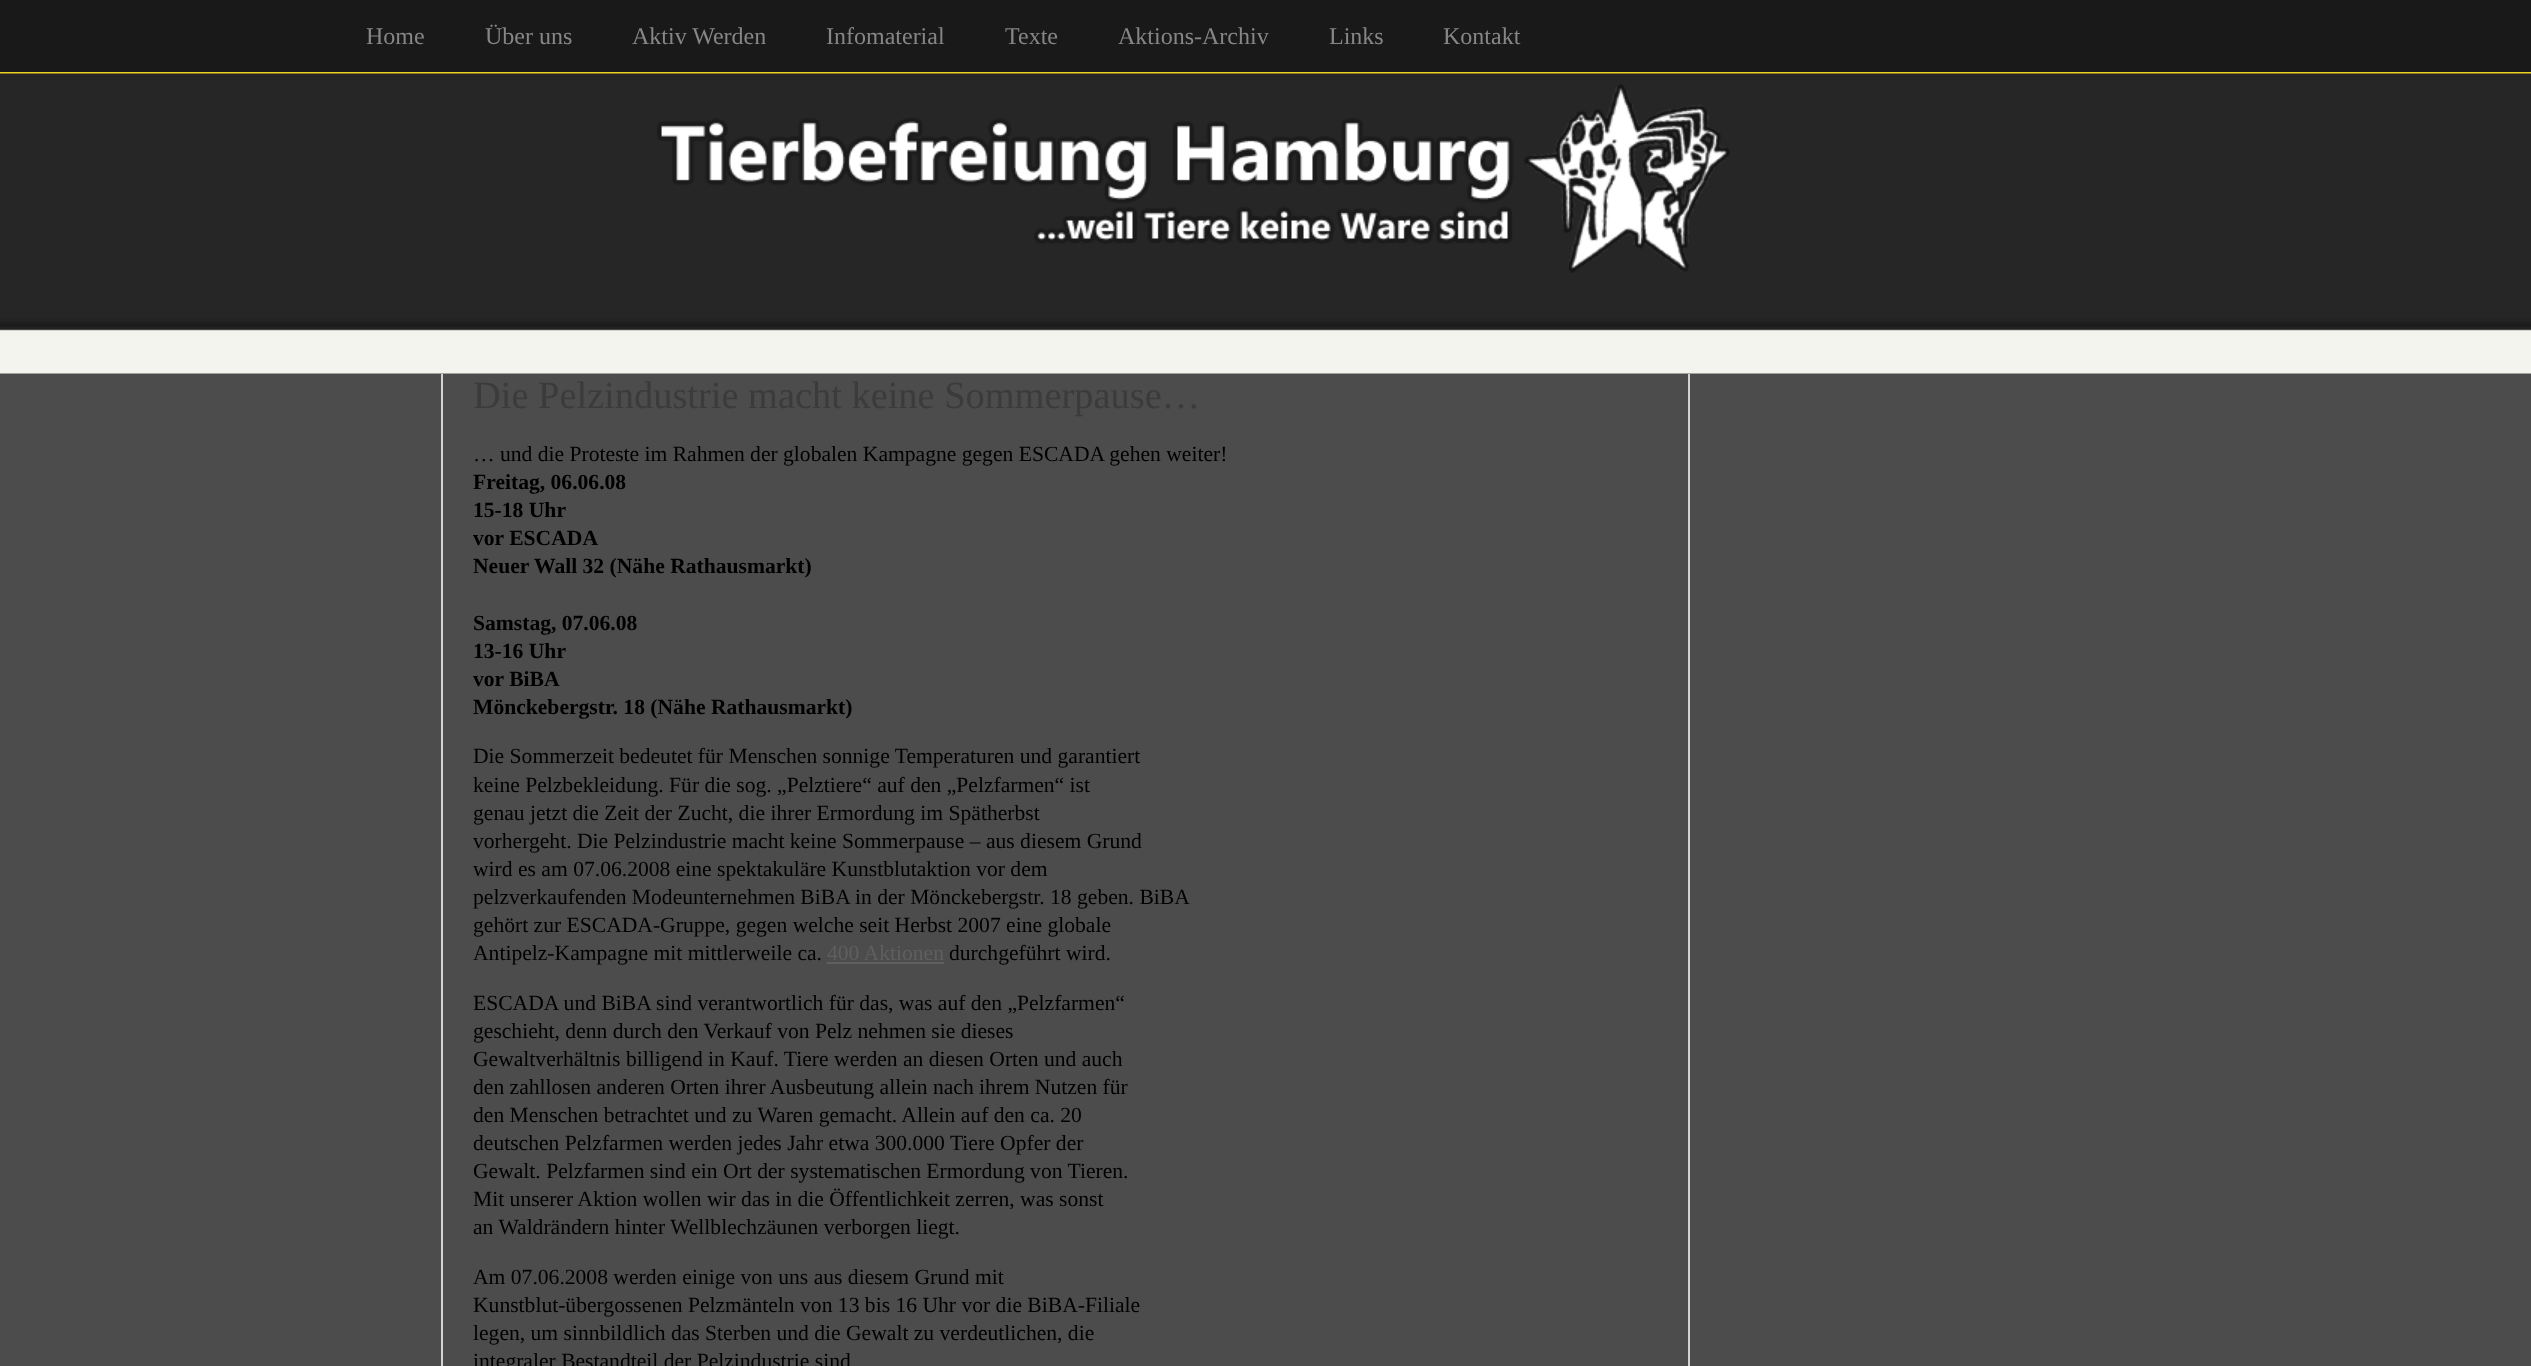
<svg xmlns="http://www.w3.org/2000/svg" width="2531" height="1366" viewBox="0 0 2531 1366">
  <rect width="100%" height="100%" fill="#4c4c4c"/>
  <rect x="0" y="0" width="2531" height="72" fill="#191919"/>
  <rect x="0" y="72" width="2531" height="2" fill="#ebd220"/>
  <text x="366" y="44" font-family="Liberation Serif" font-size="24" fill="#868686">Home</text>
  <text x="485" y="44" font-family="Liberation Serif" font-size="24" fill="#868686">Über uns</text>
  <text x="632" y="44" font-family="Liberation Serif" font-size="24" fill="#868686">Aktiv Werden</text>
  <text x="826" y="44" font-family="Liberation Serif" font-size="24" fill="#868686">Infomaterial</text>
  <text x="1005" y="44" font-family="Liberation Serif" font-size="24" fill="#868686">Texte</text>
  <text x="1118" y="44" font-family="Liberation Serif" font-size="24" fill="#868686">Aktions-Archiv</text>
  <text x="1329" y="44" font-family="Liberation Serif" font-size="24" fill="#868686">Links</text>
  <text x="1443" y="44" font-family="Liberation Serif" font-size="24" fill="#868686">Kontakt</text>
  <image x="0" y="73" width="2531" height="301" href="img1.png"/>
  <image x="657" y="84" width="1073" height="189" href="img2.png"/>
  <rect x="1688" y="374" width="2" height="992" fill="#d3d3d3"/>
  <rect x="441" y="374" width="2" height="992" fill="#d3d3d3"/>
  <text x="473" y="408" font-family="Liberation Serif" font-size="38.4" fill="#3b3b3b">Die Pelzindustrie macht keine Sommerpause…</text>
  <text x="473" y="461" font-family="Liberation Serif" font-size="21.6" fill="#000000">… und die Proteste im Rahmen der globalen Kampagne gegen ESCADA gehen weiter!</text>
  <text x="473" y="489" font-family="Liberation Serif" font-size="21.6" font-weight="bold" fill="#000000">Freitag, 06.06.08</text>
  <text x="473" y="517" font-family="Liberation Serif" font-size="21.6" font-weight="bold" fill="#000000">15-18 Uhr</text>
  <text x="473" y="545" font-family="Liberation Serif" font-size="21.6" font-weight="bold" fill="#000000">vor ESCADA</text>
  <text x="473" y="573" font-family="Liberation Serif" font-size="21.6" font-weight="bold" fill="#000000">Neuer Wall 32 (Nähe Rathausmarkt)</text>
  <text x="473" y="630" font-family="Liberation Serif" font-size="21.6" font-weight="bold" fill="#000000">Samstag, 07.06.08</text>
  <text x="473" y="658" font-family="Liberation Serif" font-size="21.6" font-weight="bold" fill="#000000">13-16 Uhr</text>
  <text x="473" y="686" font-family="Liberation Serif" font-size="21.6" font-weight="bold" fill="#000000">vor BiBA</text>
  <text x="473" y="714" font-family="Liberation Serif" font-size="21.6" font-weight="bold" fill="#000000">Mönckebergstr. 18 (Nähe Rathausmarkt)</text>
  <text x="473" y="763" font-family="Liberation Serif" font-size="21.6" fill="#000000">Die Sommerzeit bedeutet für Menschen sonnige Temperaturen und garantiert</text>
  <text x="473" y="792" font-family="Liberation Serif" font-size="21.6" fill="#000000">keine Pelzbekleidung. Für die sog. „Pelztiere“ auf den „Pelzfarmen“ ist</text>
  <text x="473" y="820" font-family="Liberation Serif" font-size="21.6" fill="#000000">genau jetzt die Zeit der Zucht, die ihrer Ermordung im Spätherbst</text>
  <text x="473" y="848" font-family="Liberation Serif" font-size="21.6" fill="#000000">vorhergeht. Die Pelzindustrie macht keine Sommerpause – aus diesem Grund</text>
  <text x="473" y="876" font-family="Liberation Serif" font-size="21.6" fill="#000000">wird es am 07.06.2008 eine spektakuläre Kunstblutaktion vor dem</text>
  <text x="473" y="904" font-family="Liberation Serif" font-size="21.6" fill="#000000">pelzverkaufenden Modeunternehmen BiBA in der Mönckebergstr. 18 geben. BiBA</text>
  <text x="473" y="932" font-family="Liberation Serif" font-size="21.6" fill="#000000">gehört zur ESCADA-Gruppe, gegen welche seit Herbst 2007 eine globale</text>
  <text x="473" y="960" font-family="Liberation Serif" font-size="21.6" fill="#000000">Antipelz-Kampagne mit mittlerweile ca.</text>
  <text x="827" y="960" font-family="Liberation Serif" font-size="21.6" fill="#5f5f5f">400 Aktionen</text>
  <rect x="827" y="962" width="117" height="2" fill="#5f5f5f"/>
  <text x="949" y="960" font-family="Liberation Serif" font-size="21.6" fill="#000000">durchgeführt wird.</text>
  <text x="473" y="1010" font-family="Liberation Serif" font-size="21.6" fill="#000000">ESCADA und BiBA sind verantwortlich für das, was auf den „Pelzfarmen“</text>
  <text x="473" y="1038" font-family="Liberation Serif" font-size="21.6" fill="#000000">geschieht, denn durch den Verkauf von Pelz nehmen sie dieses</text>
  <text x="473" y="1066" font-family="Liberation Serif" font-size="21.6" fill="#000000">Gewaltverhältnis billigend in Kauf. Tiere werden an diesen Orten und auch</text>
  <text x="473" y="1094" font-family="Liberation Serif" font-size="21.6" fill="#000000">den zahllosen anderen Orten ihrer Ausbeutung allein nach ihrem Nutzen für</text>
  <text x="473" y="1122" font-family="Liberation Serif" font-size="21.6" fill="#000000">den Menschen betrachtet und zu Waren gemacht. Allein auf den ca. 20</text>
  <text x="473" y="1150" font-family="Liberation Serif" font-size="21.6" fill="#000000">deutschen Pelzfarmen werden jedes Jahr etwa 300.000 Tiere Opfer der</text>
  <text x="473" y="1178" font-family="Liberation Serif" font-size="21.6" fill="#000000">Gewalt. Pelzfarmen sind ein Ort der systematischen Ermordung von Tieren.</text>
  <text x="473" y="1206" font-family="Liberation Serif" font-size="21.6" fill="#000000">Mit unserer Aktion wollen wir das in die Öffentlichkeit zerren, was sonst</text>
  <text x="473" y="1234" font-family="Liberation Serif" font-size="21.6" fill="#000000">an Waldrändern hinter Wellblechzäunen verborgen liegt.</text>
  <text x="473" y="1284" font-family="Liberation Serif" font-size="21.6" fill="#000000">Am 07.06.2008 werden einige von uns aus diesem Grund mit</text>
  <text x="473" y="1312" font-family="Liberation Serif" font-size="21.6" fill="#000000">Kunstblut-übergossenen Pelzmänteln von 13 bis 16 Uhr vor die BiBA-Filiale</text>
  <text x="473" y="1340" font-family="Liberation Serif" font-size="21.6" fill="#000000">legen, um sinnbildlich das Sterben und die Gewalt zu verdeutlichen, die</text>
  <text x="473" y="1368" font-family="Liberation Serif" font-size="21.6" fill="#000000">integraler Bestandteil der Pelzindustrie sind</text>
</svg>
